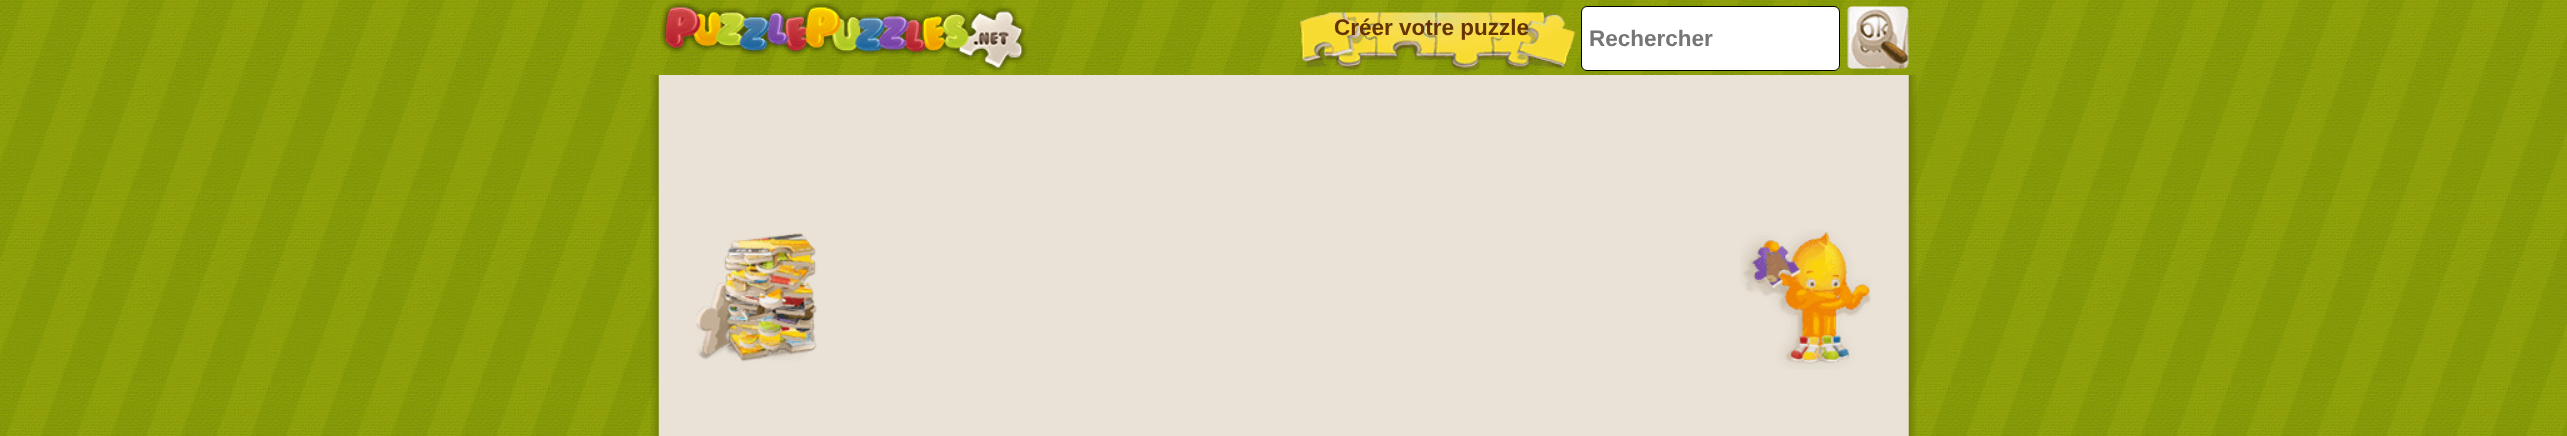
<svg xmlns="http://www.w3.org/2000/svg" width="2567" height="436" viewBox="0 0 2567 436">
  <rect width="100%" height="100%" fill="#ffffff"/>
  <image x="0" y="0" width="2567" height="436" href="img1.png"/>
  <image x="660" y="1" width="367" height="72" href="img2.png"/>
  <image x="1300" y="12" width="275" height="60" href="img3.png"/>
  <text x="1334" y="35" font-family="Liberation Sans" font-size="22.5" font-weight="bold" fill="#663300">Créer votre puzzle</text>
  <rect x="1581.5" y="6.5" width="258" height="64" rx="5.5" fill="#ffffff" stroke="#000000"/>
  <text x="1589" y="46" font-family="Liberation Sans" font-size="22.5" font-weight="bold" fill="#757575">Rechercher</text>
  <image x="1847" y="6" width="62" height="63" href="img4.png"/>
  <image x="650" y="75" width="1267" height="361" href="img5.png"/>
  <image x="696" y="233" width="121" height="129" href="img6.png"/>
  <image x="1740" y="229" width="131" height="141" href="img7.png"/>
</svg>
